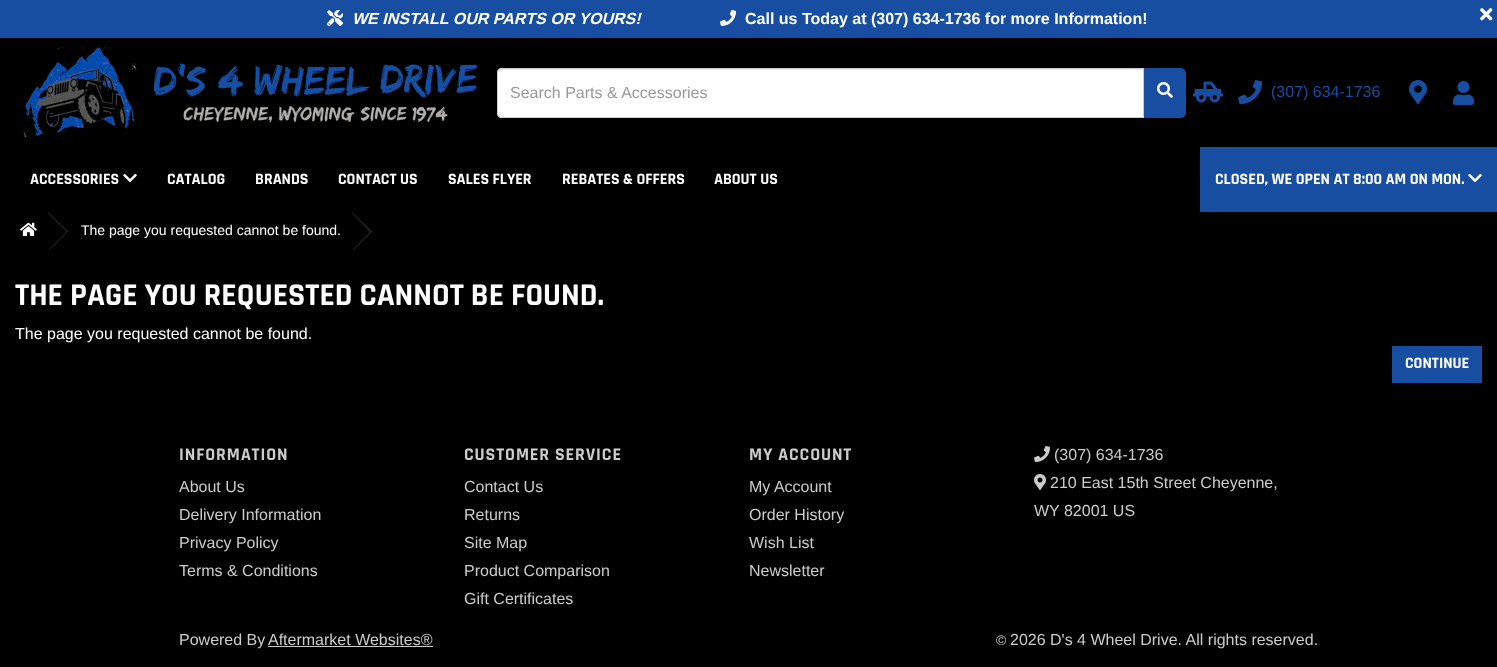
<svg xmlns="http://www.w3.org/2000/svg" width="1497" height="667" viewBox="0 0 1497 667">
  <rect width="100%" height="100%" fill="#000000"/>
  <rect x="0" y="0" width="1497" height="38" fill="#174ea2"/>
  <image x="327" y="10" width="16" height="16" href="img1.png"/>
  <text x="352" y="24" font-family="Arimo" font-size="16" font-weight="bold" font-style="italic" fill="#ffffff">WE INSTALL OUR PARTS OR YOURS!</text>
  <image x="720" y="10" width="16" height="16" href="img2.png"/>
  <text x="745" y="24" font-family="Arimo" font-size="16" font-weight="bold" fill="#ffffff">Call us Today at (307) 634-1736 for more Information!</text>
  <image x="1480" y="8" width="13" height="13" href="img3.png"/>
  <image x="23" y="47" width="455" height="91" href="img4.png"/>
  <path d="M502 68H1144V118H502C499 118 497 116 497 113V73C497 70 499 68 502 68Z" fill="#ffffff"/>
  <path d="M502 70H1143V69H502C500 69 498 71 498 73V74C498 72 500 70 502 70Z" fill="#ececec"/>
  <path d="M502 68.5H1143.5V117.5H502C499.5 117.5 497.5 115.5 497.5 113V73C497.5 70.5 499.5 68.5 502 68.5Z" fill="none" stroke="#cccccc"/>
  <text x="510" y="98" font-family="Arimo" font-size="16" fill="#999999">Search Parts &amp; Accessories</text>
  <path d="M1144.5 68.5H1181C1183.5 68.5 1185.5 70.5 1185.5 73V113C1185.5 115.5 1183.5 117.5 1181 117.5H1144.5Z" fill="#174ea2" stroke="#174ea2"/>
  <image x="1157" y="82" width="16" height="16" href="img5.png"/>
  <image x="1193" y="81" width="30" height="22" href="img6.png"/>
  <image x="1238" y="80" width="25" height="24" href="img7.png"/>
  <text x="1271" y="97" font-family="Arimo" font-size="16" fill="#174ea2">(307) 634-1736</text>
  <image x="1409" y="80" width="18" height="24" href="img8.png"/>
  <image x="1453" y="81" width="21" height="24" href="img9.png"/>
  <text x="30" y="184" font-family="Rajdhani" font-size="16" font-weight="bold" fill="#ffffff">ACCESSORIES</text>
  <image x="123" y="173" width="14" height="10" href="img10.png"/>
  <text x="167" y="184" font-family="Rajdhani" font-size="16" font-weight="bold" fill="#ffffff">CATALOG</text>
  <text x="255" y="184" font-family="Rajdhani" font-size="16" font-weight="bold" fill="#ffffff">BRANDS</text>
  <text x="338" y="184" font-family="Rajdhani" font-size="16" font-weight="bold" fill="#ffffff">CONTACT US</text>
  <text x="448" y="184" font-family="Rajdhani" font-size="16" font-weight="bold" fill="#ffffff">SALES FLYER</text>
  <text x="562" y="184" font-family="Rajdhani" font-size="16" font-weight="bold" fill="#ffffff">REBATES &amp; OFFERS</text>
  <text x="714" y="184" font-family="Rajdhani" font-size="16" font-weight="bold" fill="#ffffff">ABOUT US</text>
  <rect x="1200" y="147" width="297" height="65" fill="#174ea2"/>
  <text x="1215" y="184" font-family="Rajdhani" font-size="16" font-weight="bold" fill="#ffffff">CLOSED, WE OPEN AT 8:00 AM ON MON.</text>
  <image x="1468" y="173" width="14" height="10" href="img11.png"/>
  <image x="20" y="222" width="17" height="14" href="img12.png"/>
  <path d="M47.5 212.5L48 212L68 231.5L67.5 232.5Z" fill="#2b2b2b"/>
  <path d="M49 249.5L67.5 231L68 231.5L49.5 250Z" fill="#2b2b2b"/>
  <text x="81" y="235" font-family="Arimo" font-size="14" fill="#ffffff">The page you requested cannot be found.</text>
  <path d="M351.5 212.5L352 212L372 231.5L371 232.5Z" fill="#2b2b2b"/>
  <path d="M353 249.5L371 231L372 231.5L353.5 250Z" fill="#2b2b2b"/>
  <text x="15" y="305" font-family="Rajdhani" font-size="32" font-weight="bold" fill="#ffffff">THE PAGE YOU REQUESTED CANNOT BE FOUND.</text>
  <text x="15" y="339" font-family="Arimo" font-size="16" fill="#ffffff">The page you requested cannot be found.</text>
  <rect x="1392" y="346" width="90" height="37" fill="#174ea2"/>
  <text x="1405" y="368" font-family="Rajdhani" font-size="16" font-weight="bold" fill="#ffffff">CONTINUE</text>
  <text x="179" y="460" font-family="Rajdhani" font-size="18" font-weight="bold" letter-spacing="0.9" fill="#cccccc">INFORMATION</text>
  <text x="179" y="492" font-family="Arimo" font-size="16" fill="#cccccc">About Us</text>
  <text x="179" y="520" font-family="Arimo" font-size="16" fill="#cccccc">Delivery Information</text>
  <text x="179" y="548" font-family="Arimo" font-size="16" fill="#cccccc">Privacy Policy</text>
  <text x="179" y="576" font-family="Arimo" font-size="16" fill="#cccccc">Terms &amp; Conditions</text>
  <text x="464" y="460" font-family="Rajdhani" font-size="18" font-weight="bold" letter-spacing="0.9" fill="#cccccc">CUSTOMER SERVICE</text>
  <text x="464" y="492" font-family="Arimo" font-size="16" fill="#cccccc">Contact Us</text>
  <text x="464" y="520" font-family="Arimo" font-size="16" fill="#cccccc">Returns</text>
  <text x="464" y="548" font-family="Arimo" font-size="16" fill="#cccccc">Site Map</text>
  <text x="464" y="576" font-family="Arimo" font-size="16" fill="#cccccc">Product Comparison</text>
  <text x="464" y="604" font-family="Arimo" font-size="16" fill="#cccccc">Gift Certificates</text>
  <text x="749" y="460" font-family="Rajdhani" font-size="18" font-weight="bold" letter-spacing="0.9" fill="#cccccc">MY ACCOUNT</text>
  <text x="749" y="492" font-family="Arimo" font-size="16" fill="#cccccc">My Account</text>
  <text x="749" y="520" font-family="Arimo" font-size="16" fill="#cccccc">Order History</text>
  <text x="749" y="548" font-family="Arimo" font-size="16" fill="#cccccc">Wish List</text>
  <text x="749" y="576" font-family="Arimo" font-size="16" fill="#cccccc">Newsletter</text>
  <image x="1034" y="446" width="16" height="16" href="img13.png"/>
  <text x="1054" y="460" font-family="Arimo" font-size="16" fill="#cccccc">(307) 634-1736</text>
  <image x="1034" y="474" width="12" height="16" href="img14.png"/>
  <text x="1050" y="488" font-family="Arimo" font-size="16" fill="#cccccc">210 East 15th Street Cheyenne,</text>
  <text x="1034" y="516" font-family="Arimo" font-size="16" fill="#cccccc">WY 82001 US</text>
  <text x="179" y="645" font-family="Arimo" font-size="16" fill="#cccccc">Powered By</text>
  <text x="268" y="645" font-family="Arimo" font-size="16" fill="#cccccc">Aftermarket Websites®</text>
  <rect x="268" y="646" width="165" height="1" fill="#cccccc"/>
  <text x="996" y="645" font-family="Arimo" font-size="14" fill="#cccccc">©</text>
  <text x="1010" y="645" font-family="Arimo" font-size="16" fill="#cccccc">2026 D's 4 Wheel Drive. All rights reserved.</text>
</svg>
